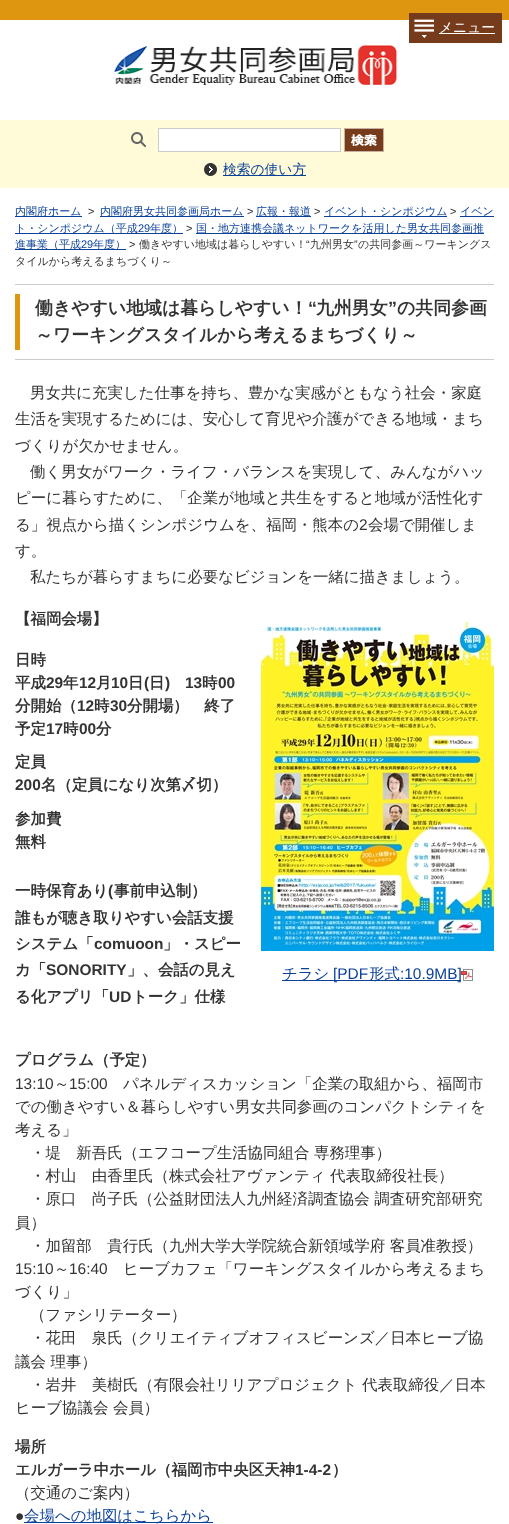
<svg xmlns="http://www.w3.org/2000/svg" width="509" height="1524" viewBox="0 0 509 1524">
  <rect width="100%" height="100%" fill="#ffffff"/>
  <rect x="0" y="0" width="509" height="20" fill="#de9610"/>
  <rect x="409" y="13" width="93" height="30" fill="#763b1b"/>
  <image x="414" y="19" width="20" height="19" href="img1.png"/>
  <text x="439" y="32" font-family="WenQuanYi Zen Hei" font-size="13.75" font-weight="500" fill="#ffffff">メニュー</text>
  <rect x="439" y="33" width="56" height="1" fill="#ffffff"/>
  <image x="113" y="45" width="285" height="40" href="img2.png"/>
  <rect x="0" y="120" width="509" height="68" fill="#fffad7"/>
  <image x="131" y="132" width="16" height="15" href="img3.png"/>
  <rect x="158.5" y="128.5" width="182" height="23" fill="#ffffff" stroke="#cccccc"/>
  <image x="344" y="128" width="40" height="24" href="img4.png"/>
  <image x="204" y="163" width="13" height="13" href="img5.png"/>
  <rect x="223" y="175" width="83" height="1" fill="#0b4199"/>
  <text x="223" y="174" font-family="WenQuanYi Zen Hei" font-size="13.75" font-weight="500" fill="#0b4199">検索の使い方</text>
  <rect x="15" y="216" width="67" height="1" fill="#0b4199"/>
  <text x="15" y="215" font-family="WenQuanYi Zen Hei" font-size="11" font-weight="500" fill="#0b4199">内閣府ホーム</text>
  <text x="88" y="215" font-family="Liberation Sans" font-size="11" fill="#333333">&gt;</text>
  <rect x="100" y="216" width="144" height="1" fill="#0b4199"/>
  <text x="100" y="215" font-family="WenQuanYi Zen Hei" font-size="11" font-weight="500" fill="#0b4199">内閣府男女共同参画局ホーム</text>
  <text x="247" y="215" font-family="Liberation Sans" font-size="11" fill="#333333">&gt;</text>
  <rect x="256" y="216" width="55" height="1" fill="#0b4199"/>
  <text x="256" y="215" font-family="WenQuanYi Zen Hei" font-size="11" font-weight="500" fill="#0b4199">広報・報道</text>
  <text x="314" y="215" font-family="Liberation Sans" font-size="11" fill="#333333">&gt;</text>
  <rect x="324" y="216" width="123" height="1" fill="#0b4199"/>
  <text x="324" y="215" font-family="WenQuanYi Zen Hei" font-size="11" font-weight="500" fill="#0b4199">イベント・シンポジウム</text>
  <text x="450" y="215" font-family="Liberation Sans" font-size="11" fill="#333333">&gt;</text>
  <rect x="460" y="216" width="34" height="1" fill="#0b4199"/>
  <text x="460" y="215" font-family="WenQuanYi Zen Hei" font-size="11" font-weight="500" fill="#0b4199">イベン</text>
  <rect x="15" y="233" width="168" height="1" fill="#0b4199"/>
  <text x="15" y="232" font-family="WenQuanYi Zen Hei" font-size="11" font-weight="500" fill="#0b4199">ト・シンポジウム（平成</text>
  <text x="138" y="232" font-family="Liberation Sans" font-size="11" fill="#0b4199">29</text>
  <text x="150" y="232" font-family="WenQuanYi Zen Hei" font-size="11" font-weight="500" fill="#0b4199">年度）</text>
  <text x="186" y="232" font-family="Liberation Sans" font-size="11" fill="#333333">&gt;</text>
  <rect x="196" y="233" width="288" height="1" fill="#0b4199"/>
  <text x="196" y="232" font-family="WenQuanYi Zen Hei" font-size="11" font-weight="500" fill="#0b4199">国・地方連携会議ネットワークを活用した男女共同参画推</text>
  <rect x="15" y="249" width="111" height="1" fill="#0b4199"/>
  <text x="15" y="248" font-family="WenQuanYi Zen Hei" font-size="11" font-weight="500" fill="#0b4199">進事業（平成</text>
  <text x="81" y="248" font-family="Liberation Sans" font-size="11" fill="#0b4199">29</text>
  <text x="93" y="248" font-family="WenQuanYi Zen Hei" font-size="11" font-weight="500" fill="#0b4199">年度）</text>
  <text x="129" y="248" font-family="Liberation Sans" font-size="11" fill="#333333">&gt;</text>
  <text x="139" y="248" font-family="WenQuanYi Zen Hei" font-size="11" font-weight="500" fill="#333333">働きやすい地域は暮らしやすい！</text>
  <text x="306" y="248" font-family="Liberation Sans" font-size="11" fill="#333333">“</text>
  <text x="310" y="248" font-family="WenQuanYi Zen Hei" font-size="11" font-weight="500" fill="#333333">九州男女</text>
  <text x="354" y="248" font-family="Liberation Sans" font-size="11" fill="#333333">”</text>
  <text x="358" y="248" font-family="WenQuanYi Zen Hei" font-size="11" font-weight="500" fill="#333333">の共同参画～ワーキングス</text>
  <text x="15" y="265" font-family="WenQuanYi Zen Hei" font-size="11" font-weight="500" fill="#333333">タイルから考えるまちづくり～</text>
  <rect x="15" y="294" width="5" height="56" fill="#de9610"/>
  <rect x="15" y="284" width="479" height="1" fill="#cccccc"/>
  <text x="35" y="314" font-family="WenQuanYi Zen Hei" font-size="17.9" font-weight="bold" fill="#333333">働きやすい地域は暮らしやすい！</text>
  <text x="308" y="314" font-family="Liberation Sans" font-size="17.9" font-weight="bold" fill="#333333">“</text>
  <text x="316" y="314" font-family="WenQuanYi Zen Hei" font-size="17.9" font-weight="bold" fill="#333333">九州男女</text>
  <text x="388" y="314" font-family="Liberation Sans" font-size="17.9" font-weight="bold" fill="#333333">”</text>
  <text x="397" y="314" font-family="WenQuanYi Zen Hei" font-size="17.9" font-weight="bold" fill="#333333">の共同参画</text>
  <text x="35" y="341" font-family="WenQuanYi Zen Hei" font-size="17.9" font-weight="bold" fill="#333333">～ワーキングスタイルから考えるまちづくり～</text>
  <rect x="15" y="359" width="479" height="1" fill="#cccccc"/>
  <text x="30" y="398" font-family="WenQuanYi Zen Hei" font-size="15.45" font-weight="500" fill="#333333">男女共に充実した仕事を持ち、豊かな実感がともなう社会・家庭</text>
  <text x="15" y="424" font-family="WenQuanYi Zen Hei" font-size="15.45" font-weight="500" fill="#333333">生活を実現するためには、安心して育児や介護ができる地域・まち</text>
  <text x="15" y="451" font-family="WenQuanYi Zen Hei" font-size="15.45" font-weight="500" fill="#333333">づくりが欠かせません。</text>
  <text x="30" y="477" font-family="WenQuanYi Zen Hei" font-size="15.45" font-weight="500" fill="#333333">働く男女がワーク・ライフ・バランスを実現して、みんながハッ</text>
  <text x="15" y="503" font-family="WenQuanYi Zen Hei" font-size="15.45" font-weight="500" fill="#333333">ピーに暮らすために、「企業が地域と共生をすると地域が活性化す</text>
  <text x="15" y="530" font-family="WenQuanYi Zen Hei" font-size="15.45" font-weight="500" fill="#333333">る」視点から描くシンポジウムを、福岡・熊本の</text>
  <text x="359" y="530" font-family="Liberation Sans" font-size="15.45" fill="#333333">2</text>
  <text x="368" y="530" font-family="WenQuanYi Zen Hei" font-size="15.45" font-weight="500" fill="#333333">会場で開催しま</text>
  <text x="15" y="556" font-family="WenQuanYi Zen Hei" font-size="15.45" font-weight="500" fill="#333333">す。</text>
  <text x="30" y="582" font-family="WenQuanYi Zen Hei" font-size="15.45" font-weight="500" fill="#333333">私たちが暮らすまちに必要なビジョンを一緒に描きましょう。</text>
  <text x="15" y="624" font-family="WenQuanYi Zen Hei" font-size="15.45" font-weight="bold" fill="#333333">【福岡会場】</text>
  <text x="15" y="665" font-family="WenQuanYi Zen Hei" font-size="15.45" font-weight="bold" fill="#333333">日時</text>
  <text x="15" y="688" font-family="WenQuanYi Zen Hei" font-size="15.45" font-weight="bold" fill="#333333">平成</text>
  <text x="46" y="688" font-family="Liberation Sans" font-size="15.45" font-weight="bold" fill="#333333">29</text>
  <text x="63" y="688" font-family="WenQuanYi Zen Hei" font-size="15.45" font-weight="bold" fill="#333333">年</text>
  <text x="79" y="688" font-family="Liberation Sans" font-size="15.45" font-weight="bold" fill="#333333">12</text>
  <text x="96" y="688" font-family="WenQuanYi Zen Hei" font-size="15.45" font-weight="bold" fill="#333333">月</text>
  <text x="111" y="688" font-family="Liberation Sans" font-size="15.45" font-weight="bold" fill="#333333">10</text>
  <text x="128" y="688" font-family="WenQuanYi Zen Hei" font-size="15.45" font-weight="bold" fill="#333333">日</text>
  <text x="144" y="688" font-family="Liberation Sans" font-size="15.45" font-weight="bold" fill="#333333">(</text>
  <text x="149" y="688" font-family="WenQuanYi Zen Hei" font-size="15.45" font-weight="bold" fill="#333333">日</text>
  <text x="165" y="688" font-family="Liberation Sans" font-size="15.45" font-weight="bold" fill="#333333">)</text>
  <text x="185" y="688" font-family="Liberation Sans" font-size="15.45" font-weight="bold" fill="#333333">13</text>
  <text x="202" y="688" font-family="WenQuanYi Zen Hei" font-size="15.45" font-weight="bold" fill="#333333">時</text>
  <text x="218" y="688" font-family="Liberation Sans" font-size="15.45" font-weight="bold" fill="#333333">00</text>
  <text x="15" y="711" font-family="WenQuanYi Zen Hei" font-size="15.45" font-weight="bold" fill="#333333">分開始（</text>
  <text x="77" y="711" font-family="Liberation Sans" font-size="15.45" font-weight="bold" fill="#333333">12</text>
  <text x="94" y="711" font-family="WenQuanYi Zen Hei" font-size="15.45" font-weight="bold" fill="#333333">時</text>
  <text x="110" y="711" font-family="Liberation Sans" font-size="15.45" font-weight="bold" fill="#333333">30</text>
  <text x="127" y="711" font-family="WenQuanYi Zen Hei" font-size="15.45" font-weight="bold" fill="#333333">分開場）　終了</text>
  <text x="15" y="734" font-family="WenQuanYi Zen Hei" font-size="15.45" font-weight="bold" fill="#333333">予定</text>
  <text x="46" y="734" font-family="Liberation Sans" font-size="15.45" font-weight="bold" fill="#333333">17</text>
  <text x="63" y="734" font-family="WenQuanYi Zen Hei" font-size="15.45" font-weight="bold" fill="#333333">時</text>
  <text x="79" y="734" font-family="Liberation Sans" font-size="15.45" font-weight="bold" fill="#333333">00</text>
  <text x="96" y="734" font-family="WenQuanYi Zen Hei" font-size="15.45" font-weight="bold" fill="#333333">分</text>
  <text x="15" y="767" font-family="WenQuanYi Zen Hei" font-size="15.45" font-weight="bold" fill="#333333">定員</text>
  <text x="15" y="790" font-family="Liberation Sans" font-size="15.45" font-weight="bold" fill="#333333">200</text>
  <text x="41" y="790" font-family="WenQuanYi Zen Hei" font-size="15.45" font-weight="bold" fill="#333333">名（定員になり次第〆切）</text>
  <text x="15" y="824" font-family="WenQuanYi Zen Hei" font-size="15.45" font-weight="bold" fill="#333333">参加費</text>
  <text x="15" y="847" font-family="WenQuanYi Zen Hei" font-size="15.45" font-weight="bold" fill="#333333">無料</text>
  <text x="15" y="896" font-family="WenQuanYi Zen Hei" font-size="15.45" font-weight="bold" fill="#333333">一時保育あり</text>
  <text x="108" y="896" font-family="Liberation Sans" font-size="15.45" font-weight="bold" fill="#333333">(</text>
  <text x="114" y="896" font-family="WenQuanYi Zen Hei" font-size="15.45" font-weight="bold" fill="#333333">事前申込制）</text>
  <text x="15" y="923" font-family="WenQuanYi Zen Hei" font-size="15.45" font-weight="bold" fill="#333333">誰もが聴き取りやすい会話支援</text>
  <text x="15" y="949" font-family="WenQuanYi Zen Hei" font-size="15.45" font-weight="bold" fill="#333333">システム「</text>
  <text x="94" y="949" font-family="Liberation Sans" font-size="15.45" font-weight="bold" fill="#333333">comuoon</text>
  <text x="163" y="949" font-family="WenQuanYi Zen Hei" font-size="15.45" font-weight="bold" fill="#333333">」・スピー</text>
  <text x="15" y="975" font-family="WenQuanYi Zen Hei" font-size="15.45" font-weight="bold" fill="#333333">カ「</text>
  <text x="46" y="975" font-family="Liberation Sans" font-size="15.45" font-weight="bold" fill="#333333">SONORITY</text>
  <text x="127" y="975" font-family="WenQuanYi Zen Hei" font-size="15.45" font-weight="bold" fill="#333333">」、会話の見え</text>
  <text x="15" y="1002" font-family="WenQuanYi Zen Hei" font-size="15.45" font-weight="bold" fill="#333333">る化アプリ「</text>
  <text x="109" y="1002" font-family="Liberation Sans" font-size="15.45" font-weight="bold" fill="#333333">UD</text>
  <text x="132" y="1002" font-family="WenQuanYi Zen Hei" font-size="15.45" font-weight="bold" fill="#333333">トーク」仕様</text>
  <image x="261" y="621" width="233" height="330" href="img6.png"/>
  <rect x="282" y="980" width="179" height="1" fill="#0b4199"/>
  <text x="282" y="979" font-family="WenQuanYi Zen Hei" font-size="15.45" font-weight="500" fill="#0b4199">チラシ</text>
  <text x="333" y="979" font-family="Liberation Sans" font-size="15.45" fill="#0b4199">[PDF</text>
  <text x="369" y="979" font-family="WenQuanYi Zen Hei" font-size="15.45" font-weight="500" fill="#0b4199">形式</text>
  <text x="400" y="979" font-family="Liberation Sans" font-size="15.45" fill="#0b4199">:10.9MB]</text>
  <image x="461" y="969" width="12" height="12" href="img7.png"/>
  <text x="15" y="1065" font-family="WenQuanYi Zen Hei" font-size="15.45" font-weight="bold" fill="#333333">プログラム（予定）</text>
  <text x="15" y="1089" font-family="Liberation Sans" font-size="15.45" fill="#333333">13:10</text>
  <text x="54" y="1089" font-family="WenQuanYi Zen Hei" font-size="15.45" font-weight="500" fill="#333333">～</text>
  <text x="69" y="1089" font-family="Liberation Sans" font-size="15.45" fill="#333333">15:00</text>
  <text x="123" y="1089" font-family="WenQuanYi Zen Hei" font-size="15.45" font-weight="500" fill="#333333">パネルディスカッション「企業の取組から、福岡市</text>
  <text x="15" y="1112" font-family="WenQuanYi Zen Hei" font-size="15.45" font-weight="500" fill="#333333">での働きやすい＆暮らしやすい男女共同参画のコンパクトシティを</text>
  <text x="15" y="1135" font-family="WenQuanYi Zen Hei" font-size="15.45" font-weight="500" fill="#333333">考える」</text>
  <text x="30" y="1158" font-family="WenQuanYi Zen Hei" font-size="15.45" font-weight="500" fill="#333333">・堤　新吾氏（エフコープ生活協同組合 専務理事）</text>
  <text x="30" y="1181" font-family="WenQuanYi Zen Hei" font-size="15.45" font-weight="500" fill="#333333">・村山　由香里氏（株式会社アヴァンティ 代表取締役社長）</text>
  <text x="30" y="1204" font-family="WenQuanYi Zen Hei" font-size="15.45" font-weight="500" fill="#333333">・原口　尚子氏（公益財団法人九州経済調査協会 調査研究部研究</text>
  <text x="15" y="1228" font-family="WenQuanYi Zen Hei" font-size="15.45" font-weight="500" fill="#333333">員）</text>
  <text x="30" y="1251" font-family="WenQuanYi Zen Hei" font-size="15.45" font-weight="500" fill="#333333">・加留部　貴行氏（九州大学大学院統合新領域学府 客員准教授）</text>
  <text x="15" y="1274" font-family="Liberation Sans" font-size="15.45" fill="#333333">15:10</text>
  <text x="54" y="1274" font-family="WenQuanYi Zen Hei" font-size="15.45" font-weight="500" fill="#333333">～</text>
  <text x="69" y="1274" font-family="Liberation Sans" font-size="15.45" fill="#333333">16:40</text>
  <text x="123" y="1274" font-family="WenQuanYi Zen Hei" font-size="15.45" font-weight="500" fill="#333333">ヒーブカフェ「ワーキングスタイルから考えるまち</text>
  <text x="15" y="1297" font-family="WenQuanYi Zen Hei" font-size="15.45" font-weight="500" fill="#333333">づくり」</text>
  <text x="30" y="1320" font-family="WenQuanYi Zen Hei" font-size="15.45" font-weight="500" fill="#333333">（ファシリテーター）</text>
  <text x="30" y="1343" font-family="WenQuanYi Zen Hei" font-size="15.45" font-weight="500" fill="#333333">・花田　泉氏（クリエイティブオフィスビーンズ／日本ヒーブ協</text>
  <text x="15" y="1367" font-family="WenQuanYi Zen Hei" font-size="15.45" font-weight="500" fill="#333333">議会 理事）</text>
  <text x="30" y="1390" font-family="WenQuanYi Zen Hei" font-size="15.45" font-weight="500" fill="#333333">・岩井　美樹氏（有限会社リリアプロジェクト 代表取締役／日本</text>
  <text x="15" y="1413" font-family="WenQuanYi Zen Hei" font-size="15.45" font-weight="500" fill="#333333">ヒーブ協議会 会員）</text>
  <text x="15" y="1452" font-family="WenQuanYi Zen Hei" font-size="15.45" font-weight="bold" fill="#333333">場所</text>
  <text x="15" y="1475" font-family="WenQuanYi Zen Hei" font-size="15.45" font-weight="bold" fill="#333333">エルガーラ中ホール（福岡市中央区天神</text>
  <text x="295" y="1475" font-family="Liberation Sans" font-size="15.45" font-weight="bold" fill="#333333">1-4-2</text>
  <text x="332" y="1475" font-family="WenQuanYi Zen Hei" font-size="15.45" font-weight="bold" fill="#333333">）</text>
  <text x="15" y="1498" font-family="WenQuanYi Zen Hei" font-size="15.45" font-weight="500" fill="#333333">（交通のご案内）</text>
  <text x="15" y="1521" font-family="Liberation Sans" font-size="15.45" fill="#333333">●</text>
  <rect x="24" y="1522" width="189" height="1" fill="#0b4199"/>
  <text x="24" y="1521" font-family="WenQuanYi Zen Hei" font-size="15.45" font-weight="500" fill="#0b4199">会場への地図はこちらから</text>
</svg>
